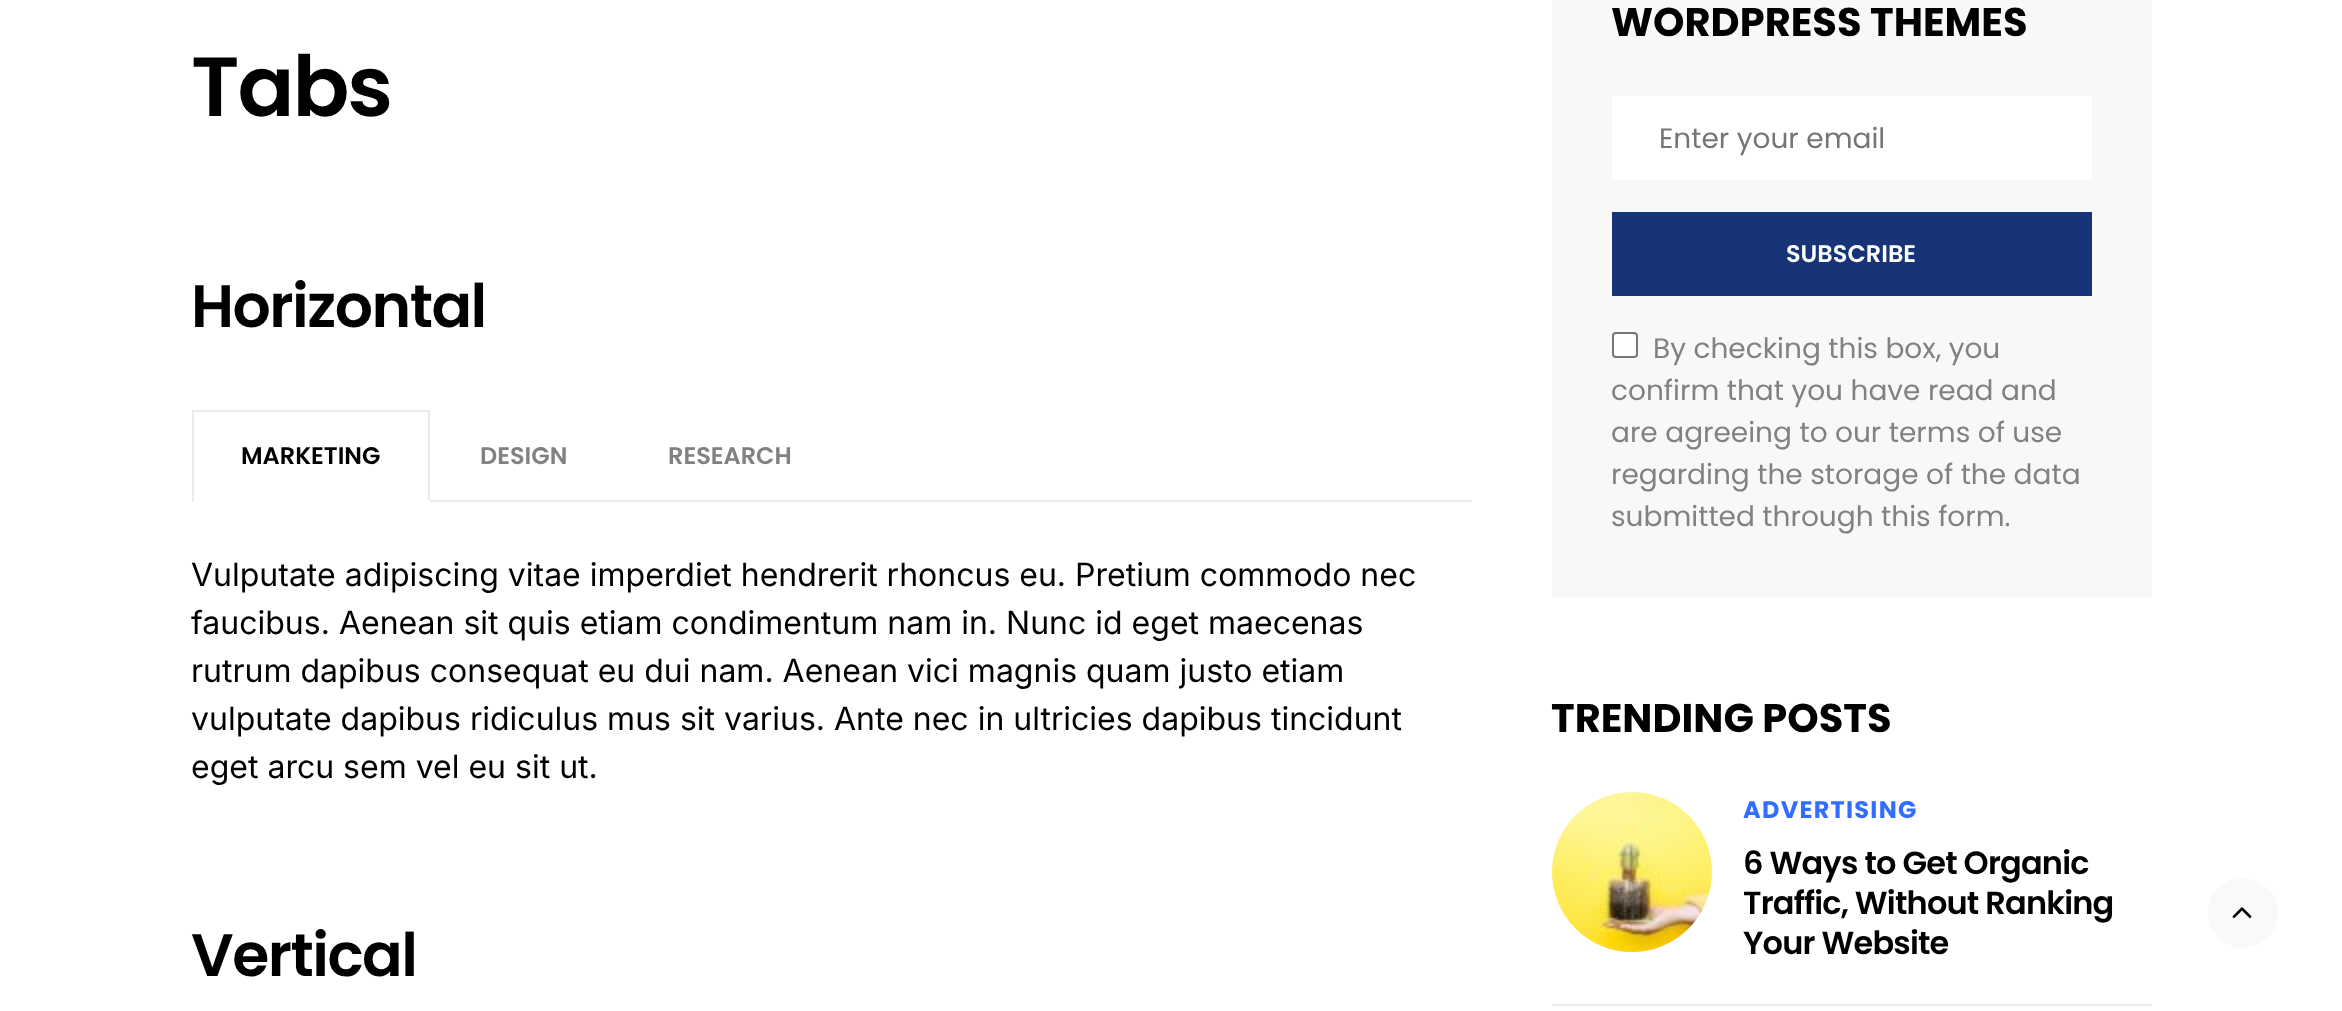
<svg xmlns="http://www.w3.org/2000/svg" width="2342" height="1011" viewBox="0 0 2342 1011">
  <rect width="100%" height="100%" fill="#ffffff"/>
  <text x="191" y="116" font-family="Poppins" font-size="84" font-weight="600" letter-spacing="-2" fill="#000000">Tabs</text>
  <text x="191" y="327" font-family="Poppins" font-size="60" font-weight="600" letter-spacing="-1.5" fill="#000000">Horizontal</text>
  <rect x="430" y="500" width="1042" height="2" fill="#e9ecef"/>
  <rect x="192" y="410" width="238" height="2" fill="#e9ecef"/>
  <rect x="428" y="410" width="2" height="92" fill="#e9ecef"/>
  <rect x="428" y="500" width="2" height="2" fill="#ffffff"/>
  <rect x="192" y="410" width="2" height="92" fill="#e9ecef"/>
  <text x="241" y="464" font-family="Poppins" font-size="24" font-weight="600" fill="#000000">MARKETING</text>
  <text x="480" y="464" font-family="Poppins" font-size="24" font-weight="600" fill="#818181">DESIGN</text>
  <text x="668" y="464" font-family="Poppins" font-size="24" font-weight="600" fill="#818181">RESEARCH</text>
  <text x="191" y="586" font-family="Inter" font-size="32" fill="#000000">Vulputate adipiscing vitae imperdiet hendrerit rhoncus eu. Pretium commodo nec</text>
  <text x="191" y="634" font-family="Inter" font-size="32" fill="#000000">faucibus. Aenean sit quis etiam condimentum nam in. Nunc id eget maecenas</text>
  <text x="191" y="682" font-family="Inter" font-size="32" fill="#000000">rutrum dapibus consequat eu dui nam. Aenean vici magnis quam justo etiam</text>
  <text x="191" y="730" font-family="Inter" font-size="32" fill="#000000">vulputate dapibus ridiculus mus sit varius. Ante nec in ultricies dapibus tincidunt</text>
  <text x="191" y="778" font-family="Inter" font-size="32" fill="#000000">eget arcu sem vel eu sit ut.</text>
  <text x="191" y="976" font-family="Poppins" font-size="60" font-weight="600" letter-spacing="-1.5" fill="#000000">Vertical</text>
  <rect x="1552" y="0" width="600" height="598" fill="#f8f8f7"/>
  <text x="1611" y="36" font-family="Poppins" font-size="40" font-weight="bold" fill="#000000">WORDPRESS THEMES</text>
  <rect x="1612" y="96" width="480" height="84" fill="#ffffff"/>
  <text x="1659" y="148" font-family="Poppins" font-size="28" fill="#757575">Enter your email</text>
  <rect x="1612" y="212" width="480" height="84" fill="#163477"/>
  <text x="1786" y="262" font-family="Poppins" font-size="24" font-weight="600" fill="#ffffff">SUBSCRIBE</text>
  <rect x="1613" y="333" width="24" height="24" rx="3" fill="#ffffff" stroke="#767676" stroke-width="2"/>
  <text x="1653" y="358" font-family="Poppins" font-size="28" fill="#818181">By checking this box, you</text>
  <text x="1611" y="400" font-family="Poppins" font-size="28" fill="#818181">confirm that you have read and</text>
  <text x="1611" y="442" font-family="Poppins" font-size="28" fill="#818181">are agreeing to our terms of use</text>
  <text x="1611" y="484" font-family="Poppins" font-size="28" fill="#818181">regarding the storage of the data</text>
  <text x="1611" y="526" font-family="Poppins" font-size="28" fill="#818181">submitted through this form.</text>
  <text x="1551" y="732" font-family="Poppins" font-size="40" font-weight="bold" fill="#000000">TRENDING POSTS</text>
  <image x="1552" y="792" width="160" height="160" href="img1.png"/>
  <text x="1743" y="818" font-family="Poppins" font-size="24" font-weight="bold" letter-spacing="1.25" fill="#326dff">ADVERTISING</text>
  <text x="1743" y="874" font-family="Poppins" font-size="32" font-weight="600" letter-spacing="-0.8" fill="#000000">6 Ways to Get Organic</text>
  <text x="1743" y="914" font-family="Poppins" font-size="32" font-weight="600" letter-spacing="-0.8" fill="#000000">Traffic, Without Ranking</text>
  <text x="1743" y="954" font-family="Poppins" font-size="32" font-weight="600" letter-spacing="-0.8" fill="#000000">Your Website</text>
  <rect x="1552" y="1004" width="600" height="2" fill="#e9ecef"/>
  <circle cx="2243" cy="913" r="35" fill="#f8f9fa"/>
  <image x="2232" y="907" width="20" height="11" href="img2.png"/>
</svg>
